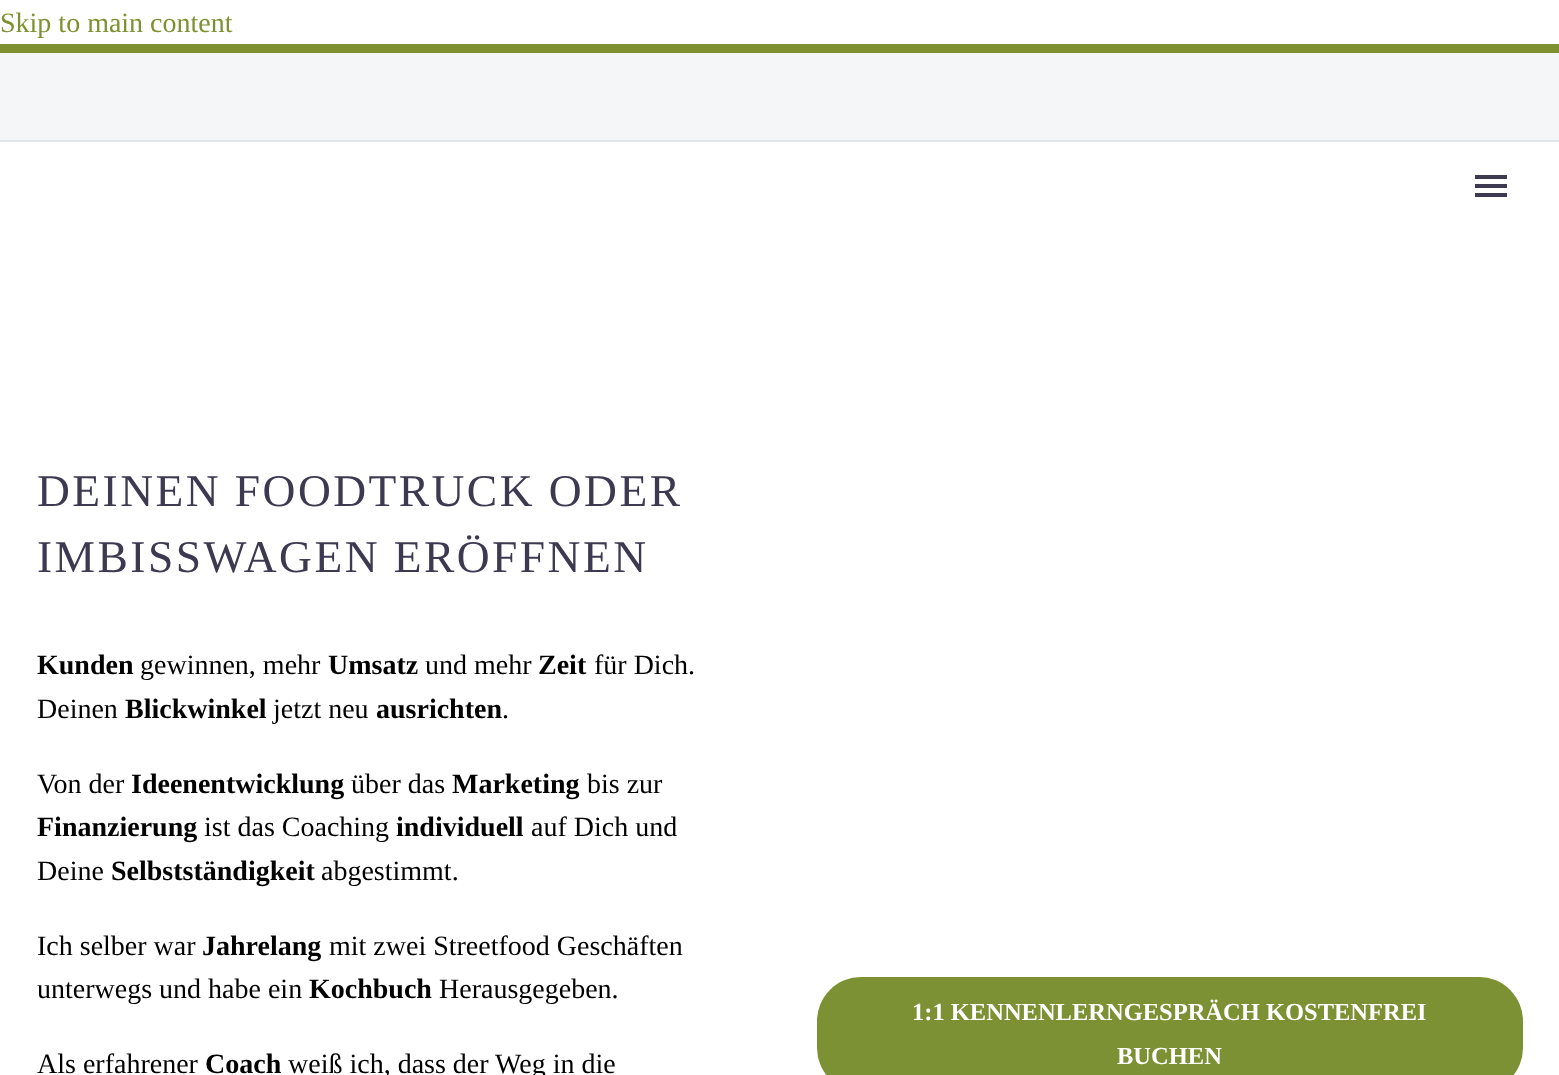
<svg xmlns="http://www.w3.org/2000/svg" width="1559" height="1075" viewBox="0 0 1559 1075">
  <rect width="100%" height="100%" fill="#ffffff"/>
  <text x="0" y="32" font-family="Liberation Serif" font-size="28" fill="#7e9030">Skip to main content</text>
  <rect x="0" y="44" width="1559" height="9" fill="#7e9030"/>
  <rect x="0" y="140" width="1559" height="2" fill="#dfe5e8"/>
  <rect x="0" y="53" width="1559" height="87" fill="#f4f6f7"/>
  <rect x="1475" y="175" width="32" height="4" fill="#3c3950"/>
  <rect x="1475" y="184" width="32" height="4" fill="#3c3950"/>
  <rect x="1475" y="193" width="32" height="4" fill="#3c3950"/>
  <text x="37" y="506" font-family="Liberation Serif" font-size="45.5" letter-spacing="2.45" fill="#3c3950">DEINEN FOODTRUCK ODER</text>
  <text x="37" y="572" font-family="Liberation Serif" font-size="45.5" letter-spacing="2.45" fill="#3c3950">IMBISSWAGEN ERÖFFNEN</text>
  <text x="37" y="674" font-family="Liberation Serif" font-size="28" font-weight="bold" fill="#000000">Kunden</text>
  <text x="140" y="674" font-family="Liberation Serif" font-size="28" fill="#000000">gewinnen, mehr</text>
  <text x="328" y="674" font-family="Liberation Serif" font-size="28" font-weight="bold" fill="#000000">Umsatz</text>
  <text x="425" y="674" font-family="Liberation Serif" font-size="28" fill="#000000">und mehr</text>
  <text x="538" y="674" font-family="Liberation Serif" font-size="28" font-weight="bold" fill="#000000">Zeit</text>
  <text x="594" y="674" font-family="Liberation Serif" font-size="28" fill="#000000">für Dich.</text>
  <text x="37" y="718" font-family="Liberation Serif" font-size="28" fill="#000000">Deinen</text>
  <text x="125" y="718" font-family="Liberation Serif" font-size="28" font-weight="bold" fill="#000000">Blickwinkel</text>
  <text x="273" y="718" font-family="Liberation Serif" font-size="28" fill="#000000">jetzt neu</text>
  <text x="376" y="718" font-family="Liberation Serif" font-size="28" font-weight="bold" fill="#000000">ausrichten</text>
  <text x="502" y="718" font-family="Liberation Serif" font-size="28" fill="#000000">.</text>
  <text x="37" y="793" font-family="Liberation Serif" font-size="28" fill="#000000">Von der</text>
  <text x="131" y="793" font-family="Liberation Serif" font-size="28" font-weight="bold" fill="#000000">Ideenentwicklung</text>
  <text x="351" y="793" font-family="Liberation Serif" font-size="28" fill="#000000">über das</text>
  <text x="452" y="793" font-family="Liberation Serif" font-size="28" font-weight="bold" fill="#000000">Marketing</text>
  <text x="587" y="793" font-family="Liberation Serif" font-size="28" fill="#000000">bis zur</text>
  <text x="37" y="836" font-family="Liberation Serif" font-size="28" font-weight="bold" fill="#000000">Finanzierung</text>
  <text x="204" y="836" font-family="Liberation Serif" font-size="28" fill="#000000">ist das Coaching</text>
  <text x="396" y="836" font-family="Liberation Serif" font-size="28" font-weight="bold" fill="#000000">individuell</text>
  <text x="531" y="836" font-family="Liberation Serif" font-size="28" fill="#000000">auf Dich und</text>
  <text x="37" y="880" font-family="Liberation Serif" font-size="28" fill="#000000">Deine</text>
  <text x="111" y="880" font-family="Liberation Serif" font-size="28" font-weight="bold" fill="#000000">Selbstständigkeit</text>
  <text x="321" y="880" font-family="Liberation Serif" font-size="28" fill="#000000">abgestimmt.</text>
  <text x="37" y="955" font-family="Liberation Serif" font-size="28" fill="#000000">Ich selber war</text>
  <text x="202" y="955" font-family="Liberation Serif" font-size="28" font-weight="bold" fill="#000000">Jahrelang</text>
  <text x="329" y="955" font-family="Liberation Serif" font-size="28" fill="#000000">mit zwei Streetfood Geschäften</text>
  <text x="37" y="998" font-family="Liberation Serif" font-size="28" fill="#000000">unterwegs und habe ein</text>
  <text x="309" y="998" font-family="Liberation Serif" font-size="28" font-weight="bold" fill="#000000">Kochbuch</text>
  <text x="439" y="998" font-family="Liberation Serif" font-size="28" fill="#000000">Herausgegeben.</text>
  <text x="37" y="1073" font-family="Liberation Serif" font-size="28" fill="#000000">Als erfahrener</text>
  <text x="205" y="1073" font-family="Liberation Serif" font-size="28" font-weight="bold" fill="#000000">Coach</text>
  <text x="288" y="1073" font-family="Liberation Serif" font-size="28" fill="#000000">weiß ich, dass der Weg in die</text>
  <rect x="817" y="977" width="706" height="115" rx="44" fill="#7b9133"/>
  <text x="912" y="1020" font-family="Liberation Serif" font-size="24.5" font-weight="bold" fill="#ffffff">1:1 KENNENLERNGESPRÄCH KOSTENFREI</text>
  <text x="1117" y="1064" font-family="Liberation Serif" font-size="24.5" font-weight="bold" fill="#ffffff">BUCHEN</text>
</svg>
